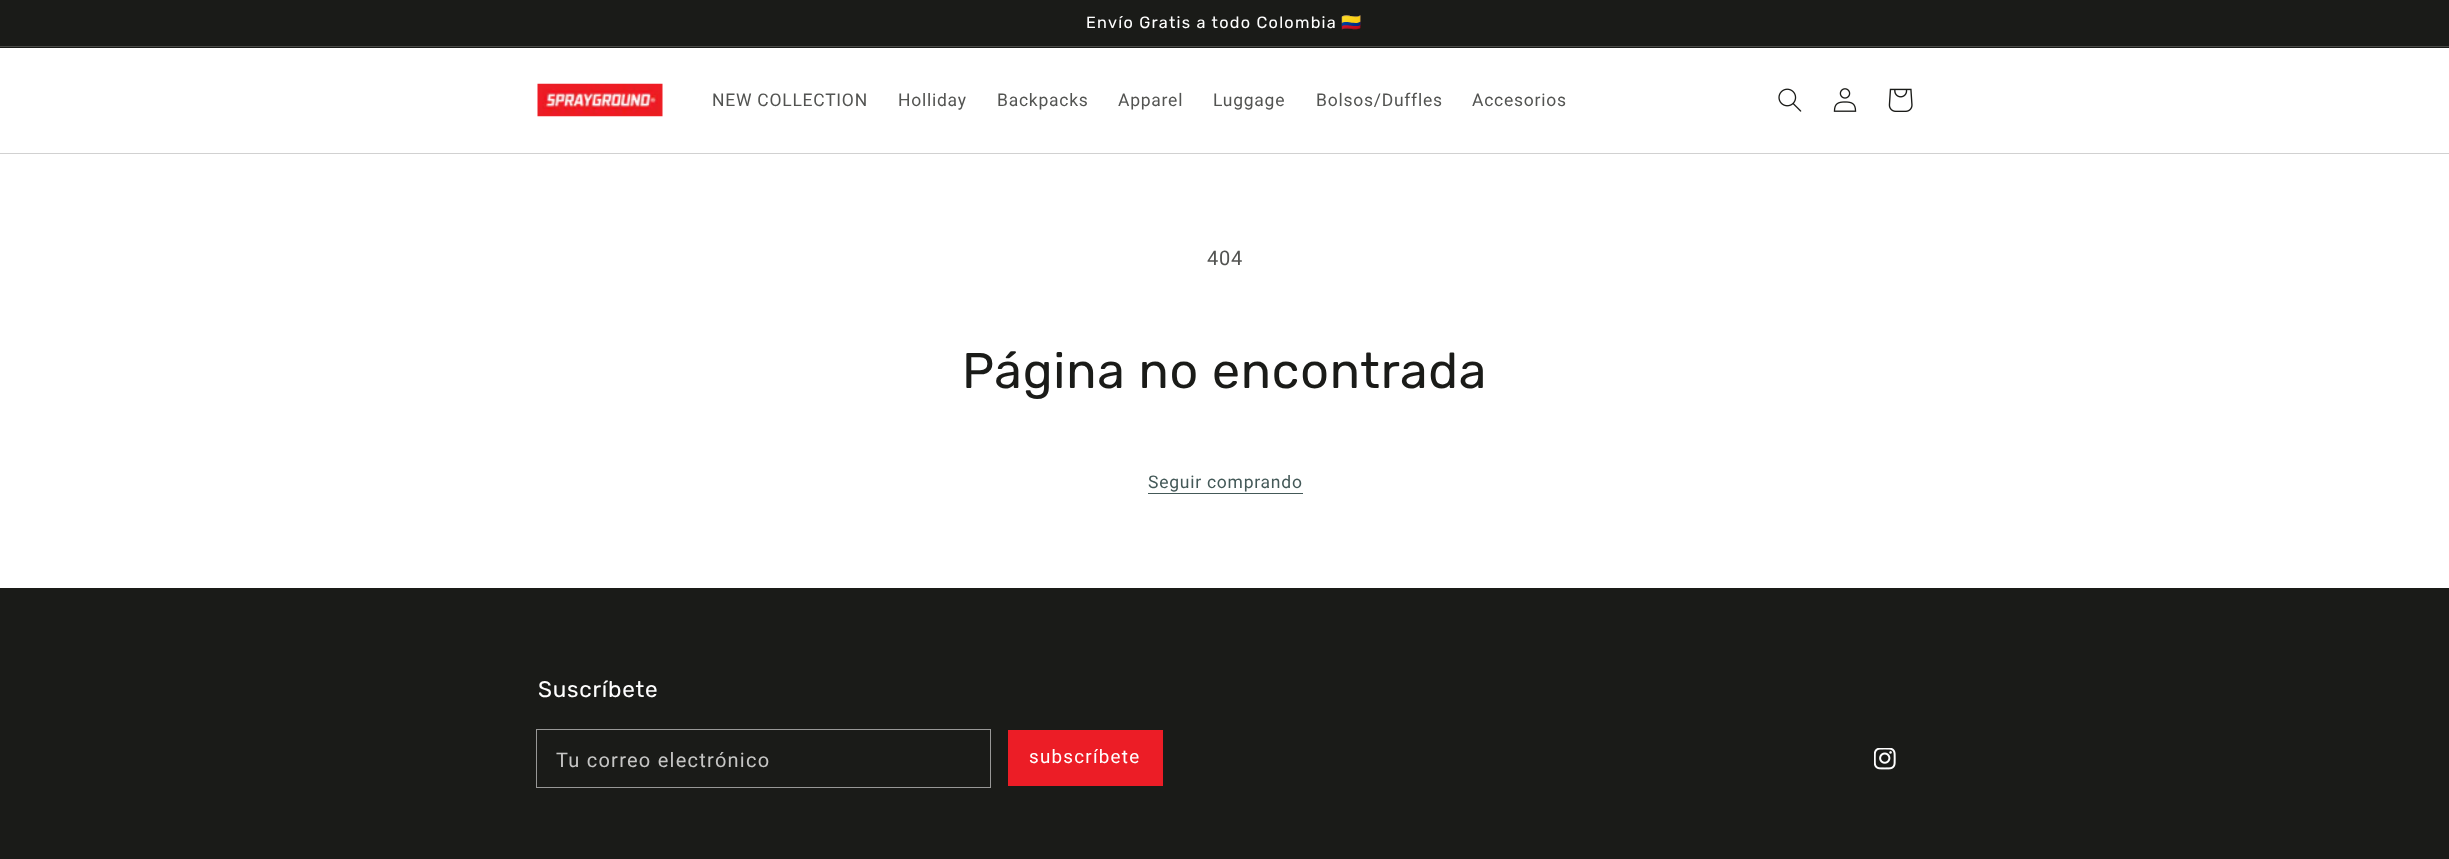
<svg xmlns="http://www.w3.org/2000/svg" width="2449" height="859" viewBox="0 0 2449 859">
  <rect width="100%" height="100%" fill="#ffffff"/>
  <rect x="0" y="0" width="2449" height="48" fill="#1a1b18"/>
  <rect x="0" y="46" width="2449" height="1" fill="#484946"/>
  <text x="1086" y="28" font-family="Rubik" font-size="16.25" letter-spacing="1.25" fill="#ffffff">Envío Gratis a todo Colombia</text>
  <text x="1341" y="28" font-family="Noto Color Emoji" font-size="16.25" letter-spacing="1.25" fill="#ffffff">🇨🇴</text>
  <rect x="0" y="153" width="2449" height="1" fill="#d1d1d1"/>
  <image x="537" y="83" width="126" height="34" href="img1.png"/>
  <text x="712" y="106" font-family="Roboto" font-size="17.5" letter-spacing="0.75" fill="#535452">NEW COLLECTION</text>
  <text x="898" y="106" font-family="Roboto" font-size="17.5" letter-spacing="0.75" fill="#535452">Holliday</text>
  <text x="997" y="106" font-family="Roboto" font-size="17.5" letter-spacing="0.75" fill="#535452">Backpacks</text>
  <text x="1118" y="106" font-family="Roboto" font-size="17.5" letter-spacing="0.75" fill="#535452">Apparel</text>
  <text x="1213" y="106" font-family="Roboto" font-size="17.5" letter-spacing="0.75" fill="#535452">Luggage</text>
  <text x="1316" y="106" font-family="Roboto" font-size="17.5" letter-spacing="0.75" fill="#535452">Bolsos/Duffles</text>
  <text x="1472" y="106" font-family="Roboto" font-size="17.5" letter-spacing="0.75" fill="#535452">Accesorios</text>
  <image x="1778" y="88" width="24" height="24" href="img2.png"/>
  <image x="1833" y="88" width="24" height="24" href="img3.png"/>
  <image x="1888" y="88" width="25" height="24" href="img4.png"/>
  <text x="1207" y="265" font-family="Roboto" font-size="20" letter-spacing="0.75" fill="#535452">404</text>
  <text x="962" y="388" font-family="Rubik" font-size="50" letter-spacing="0.75" fill="#1a1b18">Página no encontrada</text>
  <text x="1148" y="488" font-family="Roboto" font-size="17.5" letter-spacing="0.75" fill="#445958">Seguir comprando</text>
  <rect x="1148" y="493" width="155" height="1" fill="#445958"/>
  <rect x="0" y="588" width="2449" height="271" fill="#1a1b18"/>
  <text x="538" y="697" font-family="Rubik" font-size="22.5" letter-spacing="0.75" fill="#ffffff">Suscríbete</text>
  <rect x="536.5" y="729.5" width="454" height="58" fill="none" stroke="#989897"/>
  <text x="556" y="767" font-family="Roboto" font-size="20" letter-spacing="1.25" fill="#c6c6c5">Tu correo electrónico</text>
  <rect x="1008" y="730" width="155" height="56" fill="#ec1d26"/>
  <text x="1029" y="763" font-family="Roboto" font-size="18.75" letter-spacing="1.25" fill="#ffffff">subscríbete</text>
  <image x="1874" y="748" width="22" height="22" href="img5.png"/>
</svg>
